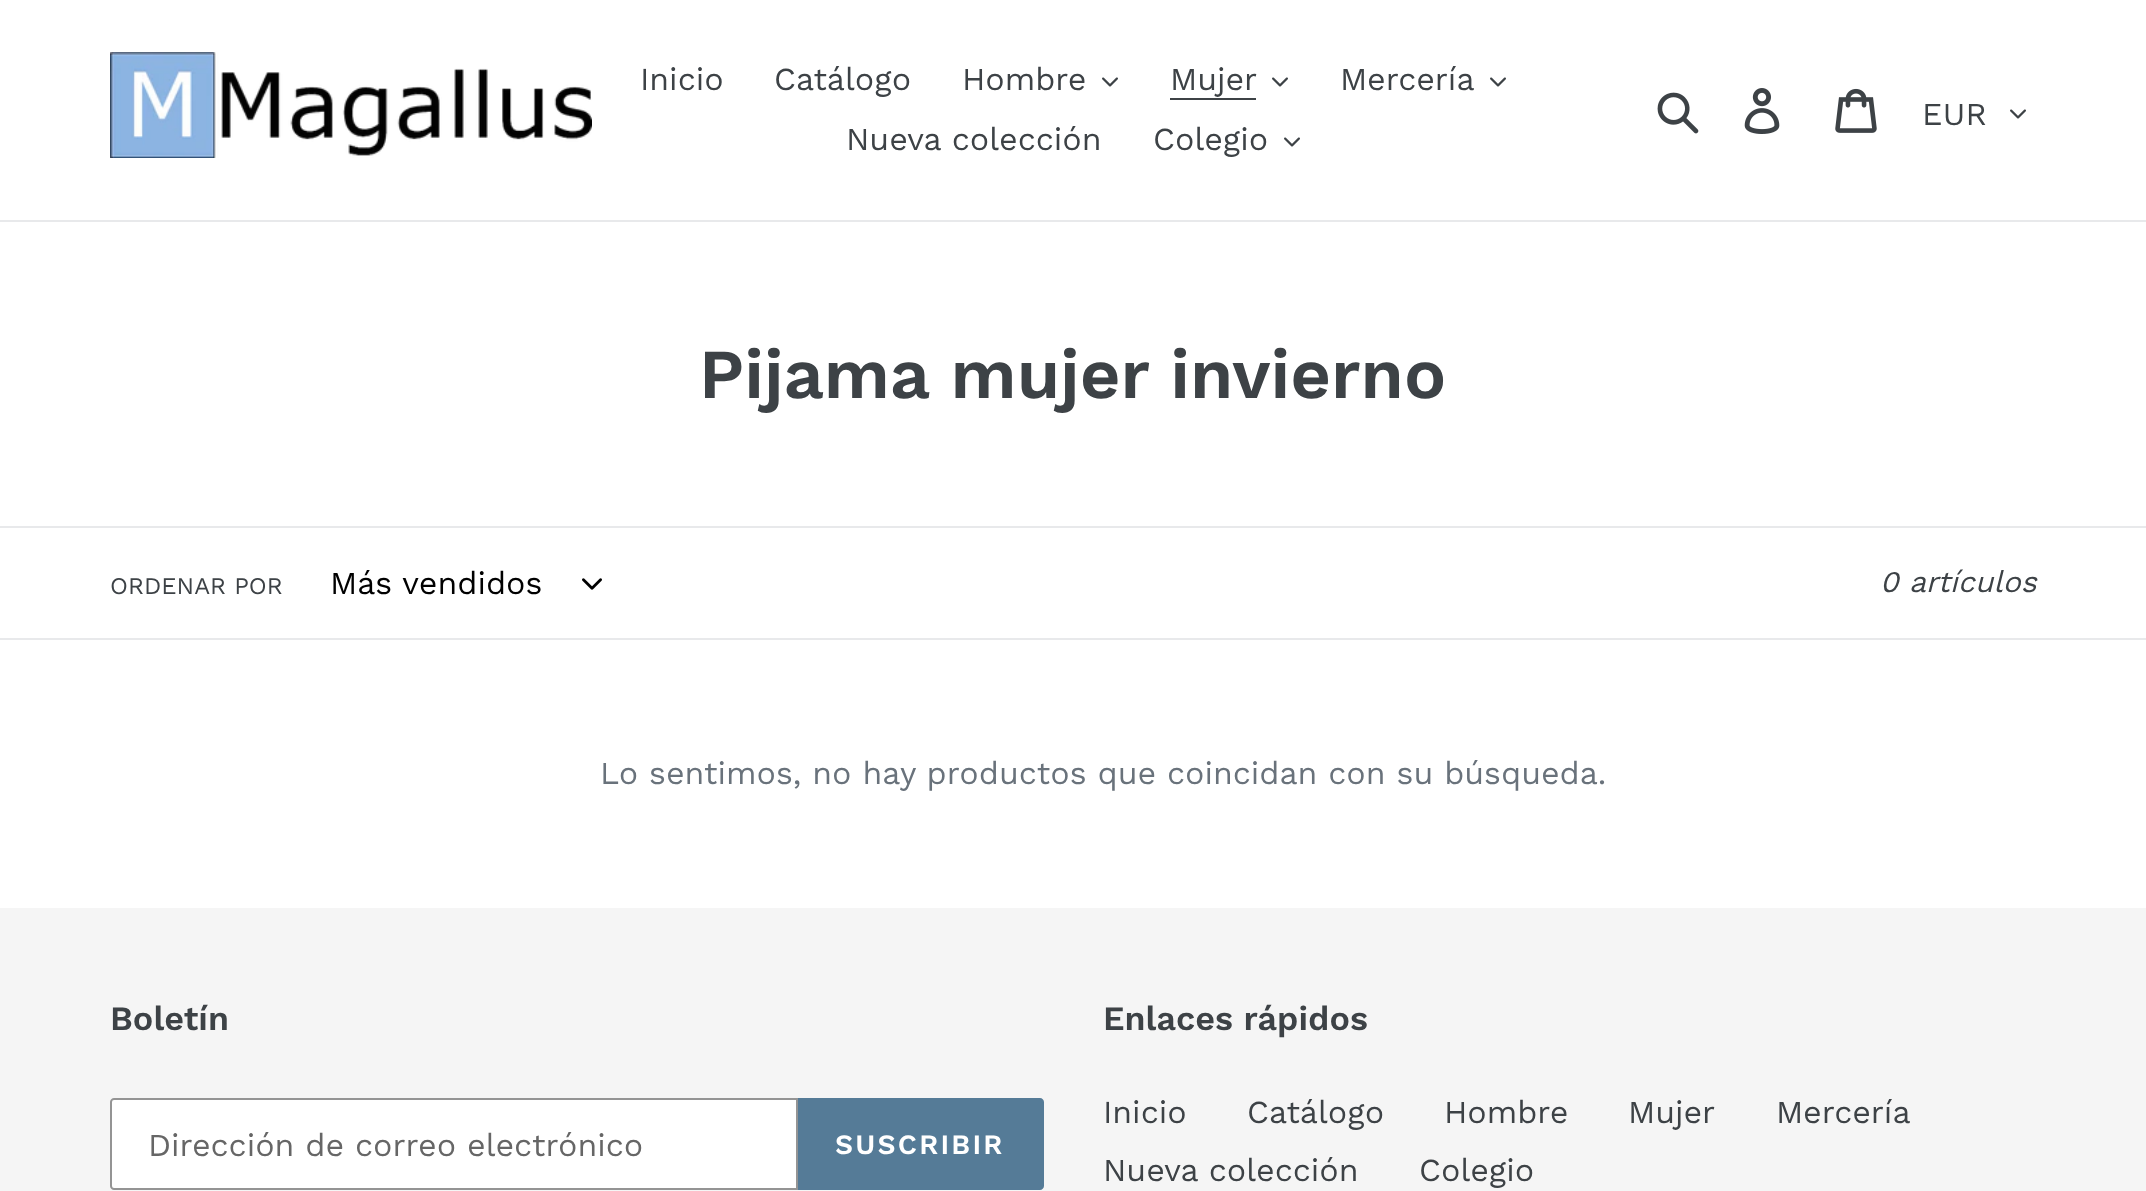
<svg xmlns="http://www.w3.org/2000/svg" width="2146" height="1191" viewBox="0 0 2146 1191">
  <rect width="100%" height="100%" fill="#ffffff"/>
  <rect x="0" y="220" width="2146" height="2" fill="#e8e9eb"/>
  <image x="110" y="52" width="482" height="106" href="img1.png"/>
  <text x="640" y="90" font-family="Work Sans" font-size="32" fill="#3d4246">Inicio</text>
  <text x="774" y="90" font-family="Work Sans" font-size="32" fill="#3d4246">Catálogo</text>
  <text x="962" y="90" font-family="Work Sans" font-size="32" fill="#3d4246">Hombre</text>
  <image x="1102" y="77" width="16" height="10" href="img2.png"/>
  <text x="1170" y="90" font-family="Work Sans" font-size="32" fill="#3d4246">Mujer</text>
  <rect x="1170" y="98" width="86" height="2" fill="#3d4246"/>
  <image x="1272" y="77" width="16" height="10" href="img2.png"/>
  <text x="1340" y="90" font-family="Work Sans" font-size="32" fill="#3d4246">Mercería</text>
  <image x="1490" y="77" width="16" height="10" href="img2.png"/>
  <text x="846" y="150" font-family="Work Sans" font-size="32" fill="#3d4246">Nueva colección</text>
  <text x="1153" y="150" font-family="Work Sans" font-size="32" fill="#3d4246">Colegio</text>
  <image x="1284" y="137" width="16" height="10" href="img2.png"/>
  <image x="1657" y="92" width="42" height="42" href="img3.png"/>
  <image x="1744" y="88" width="36" height="46" href="img4.png"/>
  <image x="1835" y="88" width="42" height="45" href="img5.png"/>
  <text x="1922" y="125" font-family="Work Sans" font-size="32" fill="#3d4246">EUR</text>
  <image x="2010" y="109" width="16" height="10" href="img2.png"/>
  <text x="699" y="398" font-family="Work Sans" font-size="70" font-weight="600" fill="#3d4246">Pijama mujer invierno</text>
  <rect x="0" y="526" width="2146" height="2" fill="#e8e9eb"/>
  <rect x="0" y="638" width="2146" height="2" fill="#e8e9eb"/>
  <text x="110" y="594" font-family="Work Sans" font-size="24" fill="#3d4246">ORDENAR POR</text>
  <text x="330" y="594" font-family="Work Sans" font-size="32" fill="#000000">Más vendidos</text>
  <image x="582" y="578" width="20" height="12" href="img6.png"/>
  <text x="1880" y="592" font-family="Work Sans" font-size="30" font-style="italic" fill="#3d4246">0 artículos</text>
  <text x="600" y="784" font-family="Work Sans" font-size="32" fill="#69727b">Lo sentimos, no hay productos que coincidan con su búsqueda.</text>
  <rect x="0" y="908" width="2146" height="283" fill="#f5f5f5"/>
  <text x="110" y="1030" font-family="Work Sans" font-size="34" font-weight="600" fill="#3d4246">Boletín</text>
  <path d="M114 1099H797V1189H114C112.5 1189 111 1187.5 111 1186V1102C111 1100.5 112.5 1099 114 1099Z" fill="#ffffff" stroke="#949494" stroke-width="2"/>
  <text x="148" y="1156" font-family="Work Sans" font-size="32" fill="#666666">Dirección de correo electrónico</text>
  <path d="M798 1098H1040C1042 1098 1044 1100 1044 1102V1186C1044 1188 1042 1190 1040 1190H798Z" fill="#557b97"/>
  <text x="835" y="1154" font-family="Work Sans" font-size="28" font-weight="600" letter-spacing="2.25" fill="#ffffff">SUSCRIBIR</text>
  <text x="1103" y="1030" font-family="Work Sans" font-size="34" font-weight="600" fill="#3d4246">Enlaces rápidos</text>
  <text x="1103" y="1123" font-family="Work Sans" font-size="32" fill="#3d4246">Inicio</text>
  <text x="1247" y="1123" font-family="Work Sans" font-size="32" fill="#3d4246">Catálogo</text>
  <text x="1444" y="1123" font-family="Work Sans" font-size="32" fill="#3d4246">Hombre</text>
  <text x="1628" y="1123" font-family="Work Sans" font-size="32" fill="#3d4246">Mujer</text>
  <text x="1776" y="1123" font-family="Work Sans" font-size="32" fill="#3d4246">Mercería</text>
  <text x="1103" y="1181" font-family="Work Sans" font-size="32" fill="#3d4246">Nueva colección</text>
  <text x="1419" y="1181" font-family="Work Sans" font-size="32" fill="#3d4246">Colegio</text>
</svg>
